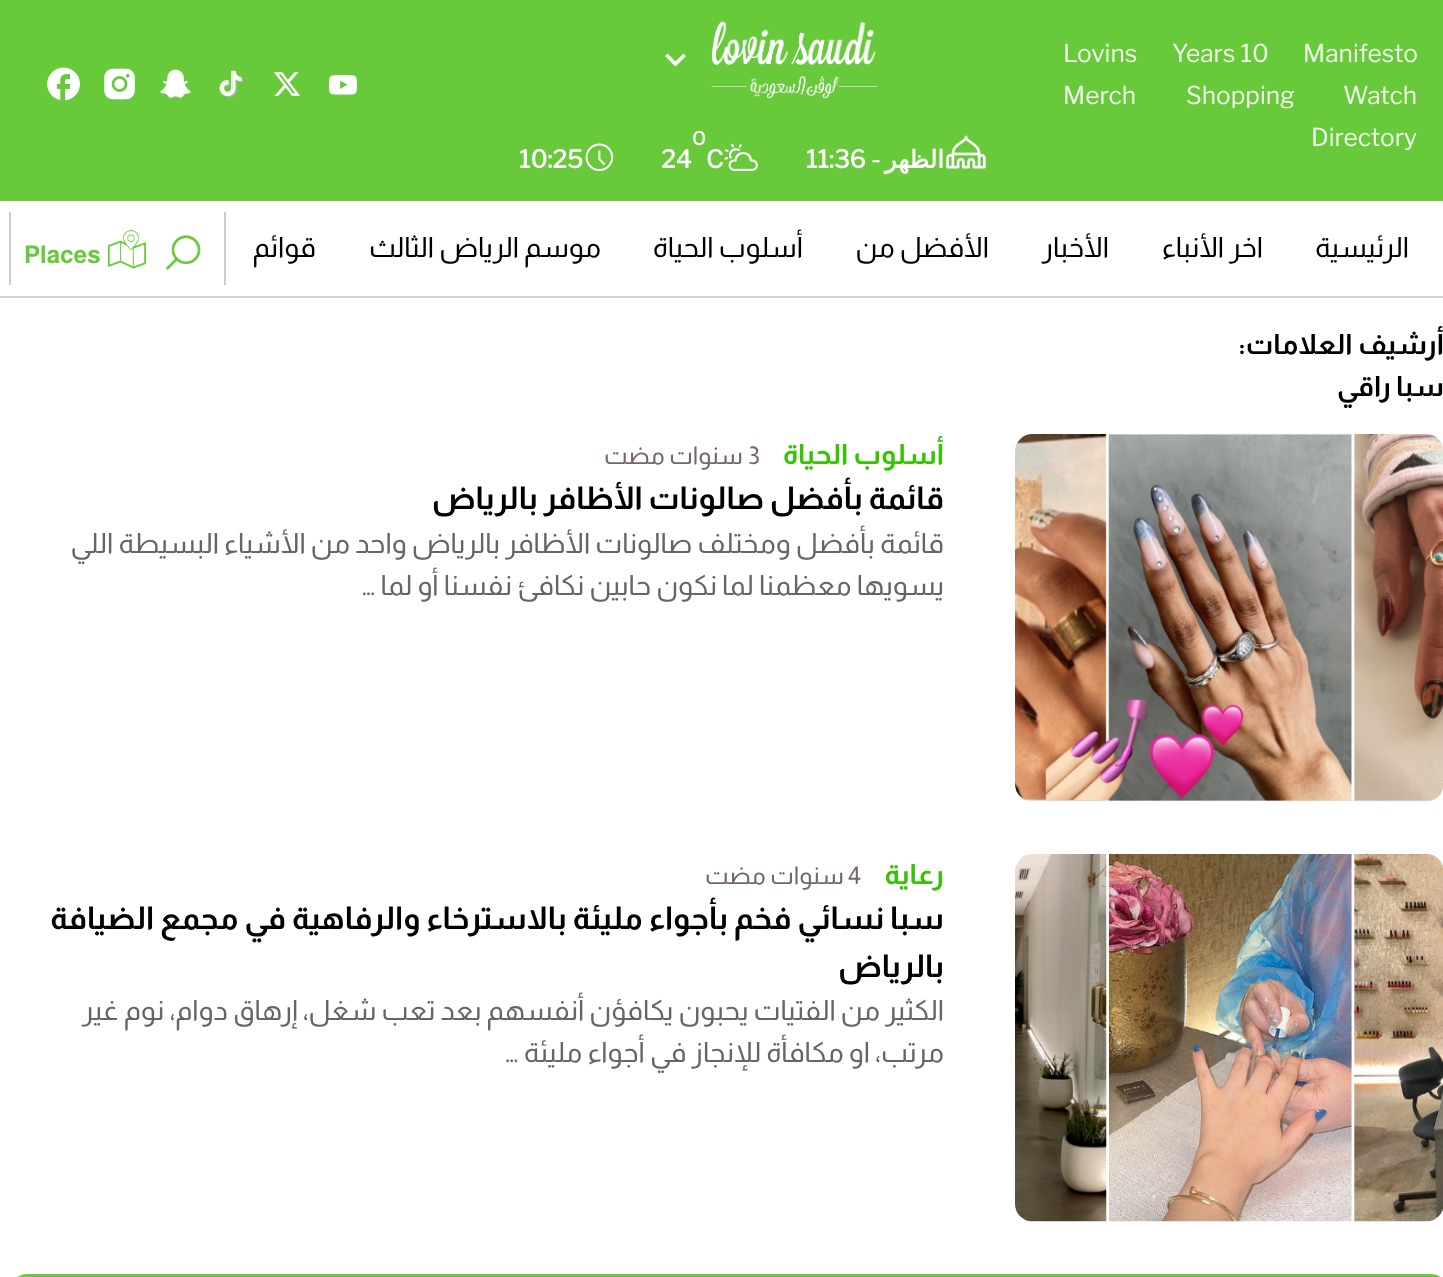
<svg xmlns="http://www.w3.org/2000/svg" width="1443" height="1277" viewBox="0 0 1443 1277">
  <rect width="100%" height="100%" fill="#ffffff"/>
  <rect x="0" y="0" width="1443" height="201" fill="#68ca3b"/>
  <text x="1303" y="62" font-family="Libre Franklin" font-size="24.5" font-weight="100" fill="#f0faeb">Manifesto</text>
  <text x="1172" y="62" font-family="Libre Franklin" font-size="24.5" font-weight="100" fill="#f0faeb">Years 10</text>
  <text x="1063" y="62" font-family="Libre Franklin" font-size="24.5" font-weight="100" fill="#f0faeb">Lovins</text>
  <text x="1343" y="104" font-family="Libre Franklin" font-size="24.5" font-weight="100" fill="#f0faeb">Watch</text>
  <text x="1186" y="104" font-family="Libre Franklin" font-size="24.5" font-weight="100" fill="#f0faeb">Shopping</text>
  <text x="1063" y="104" font-family="Libre Franklin" font-size="24.5" font-weight="100" fill="#f0faeb">Merch</text>
  <text x="1311" y="146" font-family="Libre Franklin" font-size="24.5" font-weight="100" fill="#f0faeb">Directory</text>
  <image x="329" y="75" width="28" height="20" href="img1.png"/>
  <image x="274" y="72" width="26" height="24" href="img2.png"/>
  <image x="219" y="70" width="24" height="28" href="img3.png"/>
  <image x="160" y="69" width="31" height="29" href="img4.png"/>
  <image x="104" y="68" width="31" height="32" href="img5.png"/>
  <image x="47" y="67" width="33" height="34" href="img6.png"/>
  <image x="711" y="21" width="166" height="78" href="img7.png"/>
  <path d="M667.5 53.5L675.5 61.5L683.5 53.5L686 56L675.5 66.5L665 56Z" fill="#ffffff"/>
  <image x="946" y="135" width="40" height="34" href="img8.png"/>
  <text x="944" y="168" font-family="DejaVu Sans" font-size="24.5" font-weight="bold" direction="rtl" fill="#ffffff">الظهر</text>
  <text x="806" y="168" font-family="Libre Franklin" font-size="24.5" font-weight="bold" fill="#ffffff">11:36 -</text>
  <image x="724" y="143" width="34" height="28" href="img9.png"/>
  <text x="692" y="145" font-family="Libre Franklin" font-size="18" font-weight="bold" fill="#ffffff">O</text>
  <text x="706" y="168" font-family="Libre Franklin" font-size="24.5" font-weight="bold" fill="#ffffff">C</text>
  <text x="661" y="168" font-family="Libre Franklin" font-size="24.5" font-weight="bold" fill="#ffffff">24</text>
  <image x="585" y="143" width="29" height="29" href="img10.png"/>
  <text x="519" y="168" font-family="Libre Franklin" font-size="24.5" font-weight="bold" fill="#ffffff">10:25</text>
  <rect x="0" y="296" width="1443" height="2" fill="#d3d3d3"/>
  <text x="1409" y="257" font-family="Almarai" font-size="28" direction="rtl" fill="#000000">الرئيسية</text>
  <text x="1263" y="257" font-family="Almarai" font-size="28" direction="rtl" fill="#000000">اخر الأنباء</text>
  <text x="1109" y="257" font-family="Almarai" font-size="28" direction="rtl" fill="#000000">الأخبار</text>
  <text x="989" y="257" font-family="Almarai" font-size="28" direction="rtl" fill="#000000">الأفضل من</text>
  <text x="803" y="257" font-family="Almarai" font-size="28" direction="rtl" fill="#000000">أسلوب الحياة</text>
  <text x="601" y="257" font-family="Almarai" font-size="28" direction="rtl" fill="#000000">موسم الرياض الثالث</text>
  <text x="316" y="257" font-family="Almarai" font-size="28" direction="rtl" fill="#000000">قوائم</text>
  <rect x="224" y="212" width="2" height="73" fill="#cccccc"/>
  <image x="166" y="235" width="35" height="35" href="img11.png"/>
  <rect x="9" y="212" width="2" height="73" fill="#cccccc"/>
  <image x="107" y="230" width="39" height="39" href="img12.png"/>
  <text x="24" y="263" font-family="Almarai" font-size="24.5" font-weight="bold" fill="#68ca3b">Places</text>
  <text x="1444" y="354" font-family="Almarai" font-size="28" font-weight="bold" direction="rtl" fill="#000000">أرشيف العلامات:</text>
  <text x="1444" y="396" font-family="Almarai" font-size="28" font-weight="bold" direction="rtl" fill="#000000">سبا راقي</text>
  <image x="1015" y="434" width="428" height="368" href="img13.png"/>
  <text x="944" y="464" font-family="Almarai" font-size="28" font-weight="bold" direction="rtl" fill="#34c500">أسلوب الحياة</text>
  <text x="748" y="464" font-family="Almarai" font-size="24.5" fill="#756765">3</text>
  <text x="743" y="464" font-family="Almarai" font-size="24.5" direction="rtl" fill="#756765">سنوات مضت</text>
  <text x="944" y="509" font-family="Almarai" font-size="31.5" font-weight="bold" direction="rtl" fill="#000000">قائمة بأفضل صالونات الأظافر بالرياض</text>
  <text x="944" y="553" font-family="Almarai" font-size="28" direction="rtl" fill="#656565">قائمة بأفضل ومختلف صالونات الأظافر بالرياض واحد من الأشياء البسيطة اللي</text>
  <text x="944" y="595" font-family="Almarai" font-size="28" direction="rtl" fill="#656565">يسويها معظمنا لما نكون حابين نكافئ نفسنا أو لما …</text>
  <image x="1015" y="854" width="428" height="368" href="img14.png"/>
  <text x="944" y="884" font-family="Almarai" font-size="28" font-weight="bold" direction="rtl" fill="#34c500">رعاية</text>
  <text x="848" y="884" font-family="Almarai" font-size="24.5" fill="#756765">4</text>
  <text x="844" y="884" font-family="Almarai" font-size="24.5" direction="rtl" fill="#756765">سنوات مضت</text>
  <text x="944" y="929" font-family="Almarai" font-size="31.5" font-weight="bold" direction="rtl" fill="#000000">سبا نسائي فخم بأجواء مليئة بالاسترخاء والرفاهية في مجمع الضيافة</text>
  <text x="944" y="977" font-family="Almarai" font-size="31.5" font-weight="bold" direction="rtl" fill="#000000">بالرياض</text>
  <text x="944" y="1020" font-family="Almarai" font-size="28" direction="rtl" fill="#656565">الكثير من الفتيات يحبون يكافؤن أنفسهم بعد تعب شغل، إرهاق دوام، نوم غير</text>
  <text x="944" y="1062" font-family="Almarai" font-size="28" direction="rtl" fill="#656565">مرتب، او مكافأة للإنجاز في أجواء مليئة …</text>
  <rect x="14" y="1274" width="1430" height="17" rx="14" fill="#68ca3b"/>
</svg>
